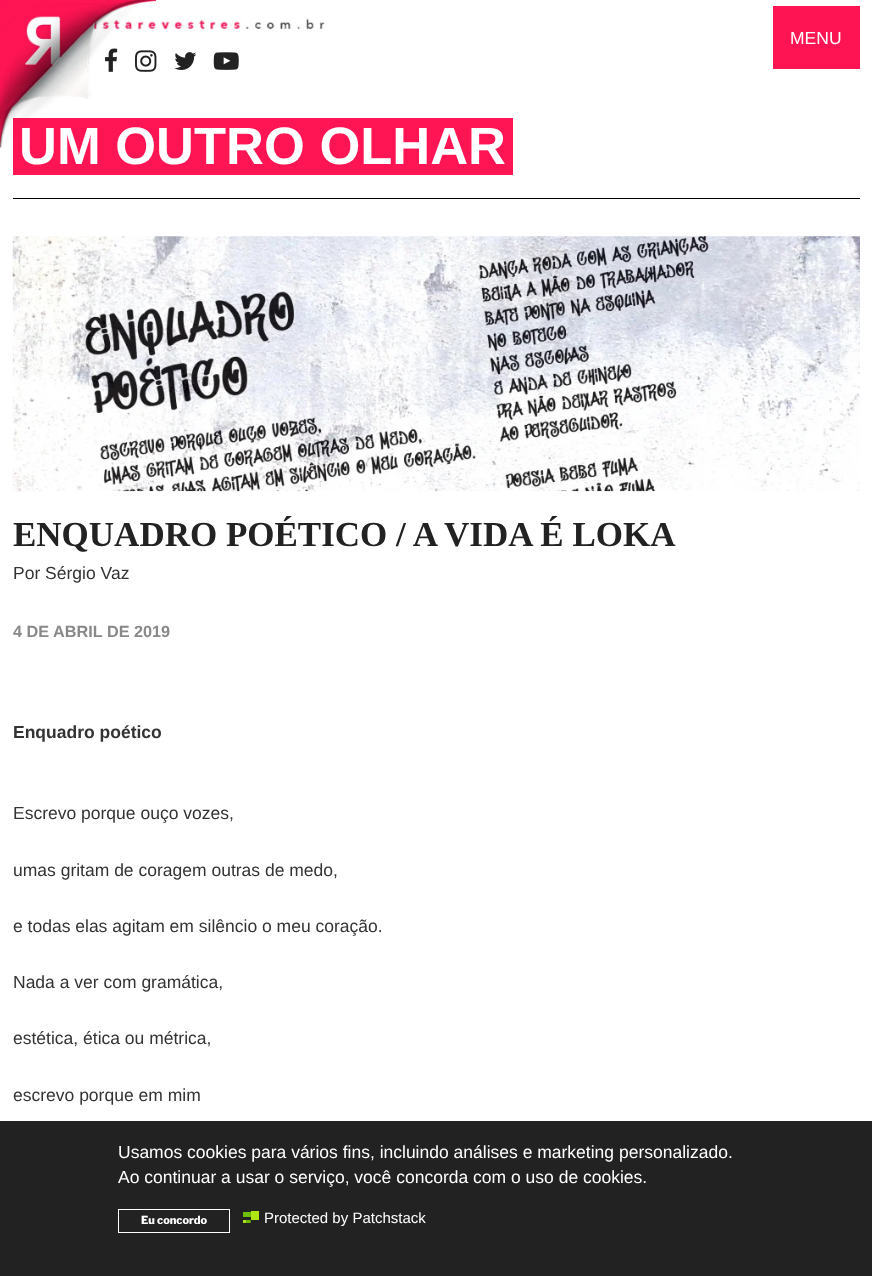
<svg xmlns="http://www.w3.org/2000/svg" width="872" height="1276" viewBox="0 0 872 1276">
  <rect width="100%" height="100%" fill="#ffffff"/>
  <image x="92" y="18" width="233" height="12" href="img2.png"/>
  <image x="105" y="48" width="13" height="24" href="img3.png"/>
  <image x="135" y="50" width="22" height="22" href="img4.png"/>
  <rect x="13" y="118" width="500" height="57" fill="#ff1554"/>
  <text x="19" y="164" font-family="Liberation Sans" font-size="52.5" font-weight="bold" fill="#ffffff">UM OUTRO OLHAR</text>
  <image x="0" y="0" width="156" height="148" href="img1.png"/>
  <image x="174" y="52" width="23" height="18" href="img5.png"/>
  <image x="213" y="52" width="26" height="18" href="img6.png"/>
  <rect x="773" y="6" width="87" height="63" fill="#ff1453"/>
  <text x="790" y="44" font-family="Liberation Sans" font-size="17.5" fill="#ffffff">MENU</text>
  <rect x="13" y="198" width="847" height="1" fill="#000000"/>
  <image x="12" y="236" width="848" height="256" href="img7.png"/>
  <text x="13" y="546" font-family="Liberation Serif" font-size="35" font-weight="bold" fill="#222222">ENQUADRO POÉTICO / A VIDA É LOKA</text>
  <text x="13" y="579" font-family="Liberation Sans" font-size="17.5" fill="#333333">Por Sérgio Vaz</text>
  <text x="13" y="637" font-family="Liberation Sans" font-size="16.25" font-weight="bold" fill="#8a8888">4 DE ABRIL DE 2019</text>
  <text x="13" y="738" font-family="Liberation Sans" font-size="17.5" font-weight="bold" fill="#333333">Enquadro poético</text>
  <text x="13" y="819" font-family="Liberation Sans" font-size="17.5" fill="#333333">Escrevo porque ouço vozes,</text>
  <text x="13" y="876" font-family="Liberation Sans" font-size="17.5" fill="#333333">umas gritam de coragem outras de medo,</text>
  <text x="13" y="932" font-family="Liberation Sans" font-size="17.5" fill="#333333">e todas elas agitam em silêncio o meu coração.</text>
  <text x="13" y="988" font-family="Liberation Sans" font-size="17.5" fill="#333333">Nada a ver com gramática,</text>
  <text x="13" y="1044" font-family="Liberation Sans" font-size="17.5" fill="#333333">estética, ética ou métrica,</text>
  <text x="13" y="1101" font-family="Liberation Sans" font-size="17.5" fill="#333333">escrevo porque em mim</text>
  <rect x="0" y="1121" width="872" height="155" fill="#222222"/>
  <text x="118" y="1158" font-family="Liberation Sans" font-size="17.5" fill="#ffffff">Usamos cookies para vários fins, incluindo análises e marketing personalizado.</text>
  <text x="118" y="1183" font-family="Liberation Sans" font-size="17.5" fill="#ffffff">Ao continuar a usar o serviço, você concorda com o uso de cookies.</text>
  <rect x="118.5" y="1209.5" width="111" height="23" fill="none" stroke="#ffffff"/>
  <text x="141" y="1224" font-family="Libre Franklin" font-size="11" font-weight="800" fill="#ffffff">Eu concordo</text>
  <image x="243" y="1211" width="16" height="12" href="img8.png"/>
  <text x="264" y="1223" font-family="Liberation Sans" font-size="15" fill="#ffffff">Protected by Patchstack</text>
</svg>
